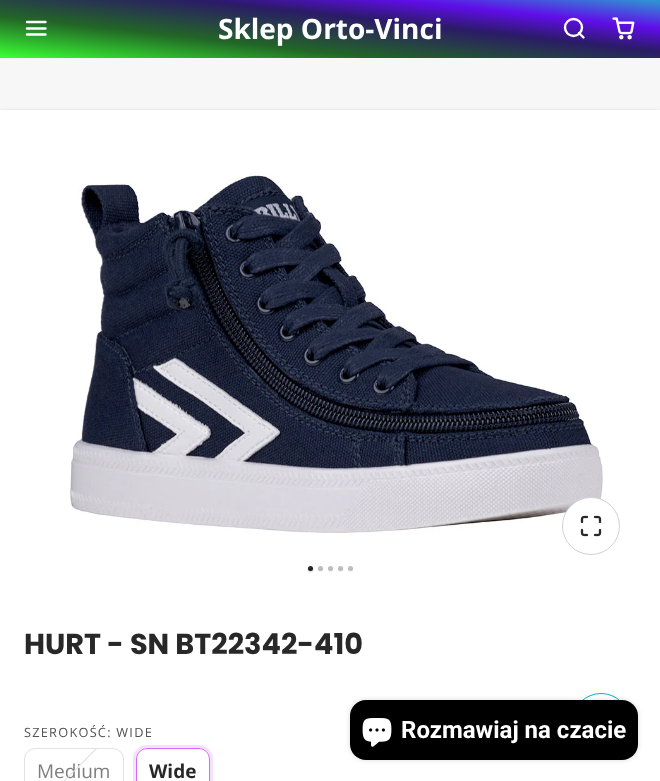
<svg xmlns="http://www.w3.org/2000/svg" width="660" height="781" viewBox="0 0 660 781">
  <defs>
    <linearGradient id="g1" gradientUnits="userSpaceOnUse" x1="323" y1="92" x2="337" y2="-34"><stop offset="0" stop-color="#39fb33"/><stop offset="0.31" stop-color="#226626"/><stop offset="0.61" stop-color="#2a1b66"/><stop offset="0.79" stop-color="#600de9"/><stop offset="1" stop-color="#3091d3"/></linearGradient>
    <filter id="blur1" x="-50%" y="-200%" width="200%" height="500%"><feGaussianBlur stdDeviation="2"/></filter>
    <filter id="blur2" x="-50%" y="-200%" width="200%" height="500%"><feGaussianBlur stdDeviation="1"/></filter>
    <filter id="blur3" x="-50%" y="-200%" width="200%" height="500%"><feGaussianBlur stdDeviation="2.5"/></filter>
  </defs>
  <rect width="100%" height="100%" fill="#f7f7f7"/>
  <rect x="0" y="0" width="660" height="58" fill="url(#g1)"/>
  <path d="M27 28.5H45.5M27 22H45.5M27 34.5H45.5" fill="none" stroke="#ffffff" stroke-width="2.4" stroke-linecap="round" stroke-linejoin="round"/>
  <text x="218" y="39" font-family="Open Sans" font-size="28" font-weight="bold" fill="#ffffff">Sklep Orto-Vinci</text>
  <circle cx="573.5" cy="27.5" r="8.5" fill="none" stroke="#ffffff" stroke-width="2.4"/>
  <path d="M583.5 37.5L579 33" fill="none" stroke="#ffffff" stroke-width="2.4" stroke-linecap="round" stroke-linejoin="round"/>
  <image x="612" y="17" width="23" height="23" href="img1.png"/>
  <rect x="0" y="112" width="660" height="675" fill="#000000" fill-opacity="0.3" filter="url(#blur1)"/>
  <rect x="0" y="110" width="660" height="671" fill="#ffffff"/>
  <image x="68" y="172" width="535" height="361" href="img2.png"/>
  <rect x="308" y="567" width="5" height="5" rx="2.5" fill="#000000" fill-opacity="0.2" filter="url(#blur2)"/>
  <circle cx="310.5" cy="568.5" r="2.5" fill="#282828"/>
  <path d="M308 568C307 572.5 314.5 571.5 313 567.5C312 569 309 569.5 308 568Z" fill="#000000" fill-opacity="0.2"/>
  <rect x="318" y="567" width="5" height="5" rx="2.5" fill="#b2b2b2" fill-opacity="0.2" filter="url(#blur2)"/>
  <circle cx="320.5" cy="568.5" r="2.5" fill="#bebebe"/>
  <path d="M318 568C317 572.5 324.5 571.5 323 567.5C322 569 319 569.5 318 568Z" fill="#b2b2b2" fill-opacity="0.2"/>
  <rect x="328" y="567" width="5" height="5" rx="2.5" fill="#b2b2b2" fill-opacity="0.2" filter="url(#blur2)"/>
  <circle cx="330.5" cy="568.5" r="2.5" fill="#bfbfbf"/>
  <path d="M328 568C327 572.5 334.5 571.5 333 567.5C332 569 329 569.5 328 568Z" fill="#b3b3b3" fill-opacity="0.2"/>
  <rect x="338" y="567" width="5" height="5" rx="2.5" fill="#b2b2b2" fill-opacity="0.2" filter="url(#blur2)"/>
  <circle cx="340.5" cy="568.5" r="2.5" fill="#bfbfbf"/>
  <path d="M338 568C337 572.5 344.5 571.5 343 567.5C342 569 339 569.5 338 568Z" fill="#b3b3b3" fill-opacity="0.2"/>
  <rect x="348" y="567" width="5" height="5" rx="2.5" fill="#b2b2b2" fill-opacity="0.2" filter="url(#blur2)"/>
  <circle cx="350.5" cy="568.5" r="2.5" fill="#bfbfbf"/>
  <path d="M348 568C347 572.5 354.5 571.5 353 567.5C352 569 349 569.5 348 568Z" fill="#b3b3b3" fill-opacity="0.2"/>
  <circle cx="591" cy="526" r="28.5" fill="#ffffff" stroke="#d1d1d1"/>
  <image x="580" y="515" width="22" height="22" href="img3.png"/>
  <text x="24" y="654" font-family="Poppins" font-size="28.75" font-weight="bold" fill="#282828">HURT - SN BT22342-410</text>
  <text x="24" y="737" font-family="Open Sans" font-size="12.75" letter-spacing="1.25" fill="#535353">SZEROKOŚĆ: WIDE</text>
  <rect x="24.5" y="748.5" width="99" height="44" rx="10.5" fill="none" stroke="#e3e3e3"/>
  <text x="37" y="778" font-family="Open Sans" font-size="19" fill="#7e7e7e">Medium</text>
  <path d="M97 749L52 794H51L95 749Z" fill="#e3e3e3"/>
  <rect x="134.5" y="746.5" width="77" height="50" rx="12.5" fill="none" stroke="#f6e1fc" stroke-width="3"/>
  <rect x="136.5" y="748.5" width="73" height="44" rx="10.5" fill="#ffffff" stroke="#d36bf1"/>
  <text x="149" y="778" font-family="Open Sans" font-size="19" font-weight="bold" fill="#282828">Wide</text>
  <circle cx="601" cy="722" r="28.5" fill="none" stroke="#00b1ce"/>
  <rect x="350" y="700" width="288" height="60" rx="16" fill="#000000" fill-opacity="0.15" filter="url(#blur3)"/>
  <rect x="350" y="700" width="288" height="60" rx="16" fill="#000000"/>
  <image x="362" y="718" width="30" height="29" href="img4.png"/>
  <text x="401" y="738" font-family="Roboto" font-size="24" font-weight="bold" fill="#ffffff">Rozmawiaj na czacie</text>
</svg>
